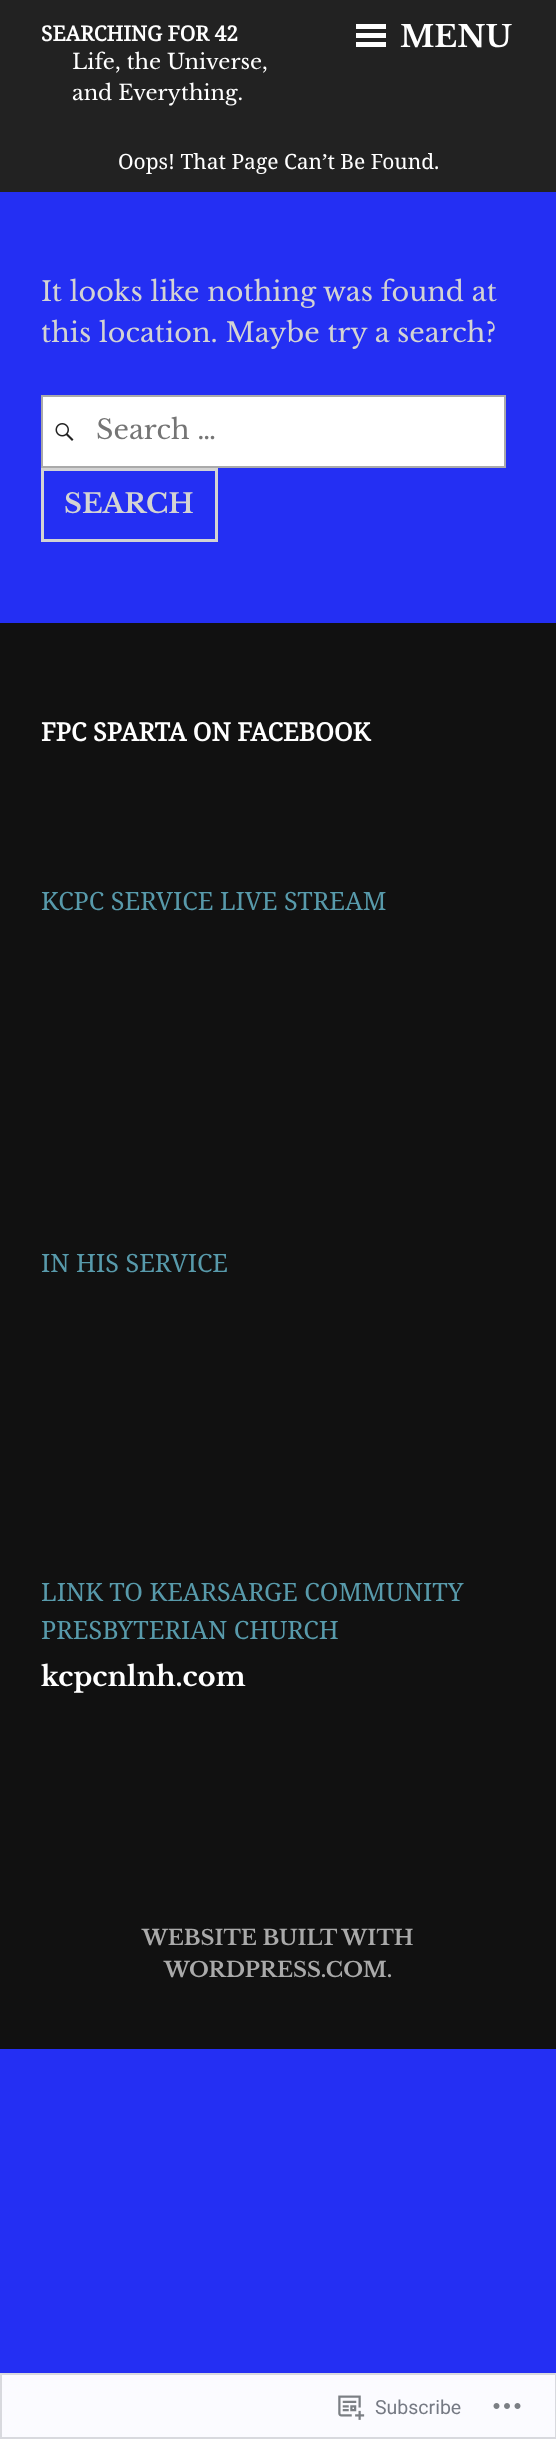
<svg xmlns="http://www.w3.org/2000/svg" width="556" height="2439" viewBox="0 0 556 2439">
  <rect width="100%" height="100%" fill="#242ff3"/>
  <rect x="0" y="0" width="556" height="192" fill="#222222"/>
  <text x="41" y="41" font-family="Noto Serif" font-size="21" font-weight="bold" fill="#ffffff">SEARCHING FOR 42</text>
  <text x="72" y="69" font-family="Libre Baskerville" font-size="21" fill="#ffffff">Life, the Universe,</text>
  <text x="72" y="100" font-family="Libre Baskerville" font-size="21" fill="#ffffff">and Everything.</text>
  <rect x="356" y="33" width="30" height="5" fill="#ffffff"/>
  <rect x="356" y="24" width="30" height="5" fill="#ffffff"/>
  <rect x="356" y="42" width="30" height="5" fill="#ffffff"/>
  <text x="400" y="47" font-family="Libre Baskerville" font-size="30" font-weight="bold" fill="#ffffff">MENU</text>
  <text x="118" y="169" font-family="Noto Serif" font-size="21" fill="#ffffff">Oops! That Page Can’t Be Found.</text>
  <text x="41" y="301" font-family="Libre Baskerville" font-size="27" fill="#d3d3d3">It looks like nothing was found at</text>
  <text x="41" y="342" font-family="Libre Baskerville" font-size="27" fill="#d3d3d3">this location. Maybe try a search?</text>
  <rect x="42" y="396" width="463" height="71" fill="#ffffff" stroke="#aaaaaa" stroke-width="2"/>
  <image x="55" y="423" width="19" height="18" href="img1.png"/>
  <text x="96" y="439" font-family="Libre Baskerville" font-size="27" fill="#757575">Search …</text>
  <rect x="42.5" y="469.5" width="174" height="71" fill="none" stroke="#d3d3d3" stroke-width="3"/>
  <text x="64" y="513" font-family="Libre Baskerville" font-size="27" font-weight="bold" fill="#d3d3d3">SEARCH</text>
  <rect x="0" y="623" width="556" height="1426" fill="#111111"/>
  <text x="41" y="741" font-family="Noto Serif" font-size="25.2" font-weight="bold" fill="#ffffff">FPC SPARTA ON FACEBOOK</text>
  <text x="41" y="910" font-family="Noto Serif" font-size="25.2" fill="#589aab">KCPC SERVICE LIVE STREAM</text>
  <text x="41" y="1272" font-family="Noto Serif" font-size="25.2" fill="#589aab">IN HIS SERVICE</text>
  <text x="41" y="1601" font-family="Noto Serif" font-size="25.2" fill="#589aab">LINK TO KEARSARGE COMMUNITY</text>
  <text x="41" y="1639" font-family="Noto Serif" font-size="25.2" fill="#589aab">PRESBYTERIAN CHURCH</text>
  <text x="41" y="1686" font-family="Libre Baskerville" font-size="27" font-weight="bold" fill="#ffffff">kcpcnlnh.com</text>
  <text x="142" y="1945" font-family="Libre Baskerville" font-size="21" font-weight="bold" fill="#aaaaaa">WEBSITE BUILT WITH</text>
  <text x="164" y="1977" font-family="Libre Baskerville" font-size="21" font-weight="bold" fill="#aaaaaa">WORDPRESS.COM.</text>
  <rect x="1" y="2374" width="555" height="64" fill="#fbfbff" stroke="#d8d9de" stroke-width="2"/>
  <image x="338" y="2395" width="27" height="25" href="img2.png"/>
  <text x="375" y="2414" font-family="Roboto" font-size="19.5" fill="#767a84">Subscribe</text>
  <image x="493" y="2403" width="28" height="6" href="img3.png"/>
</svg>
